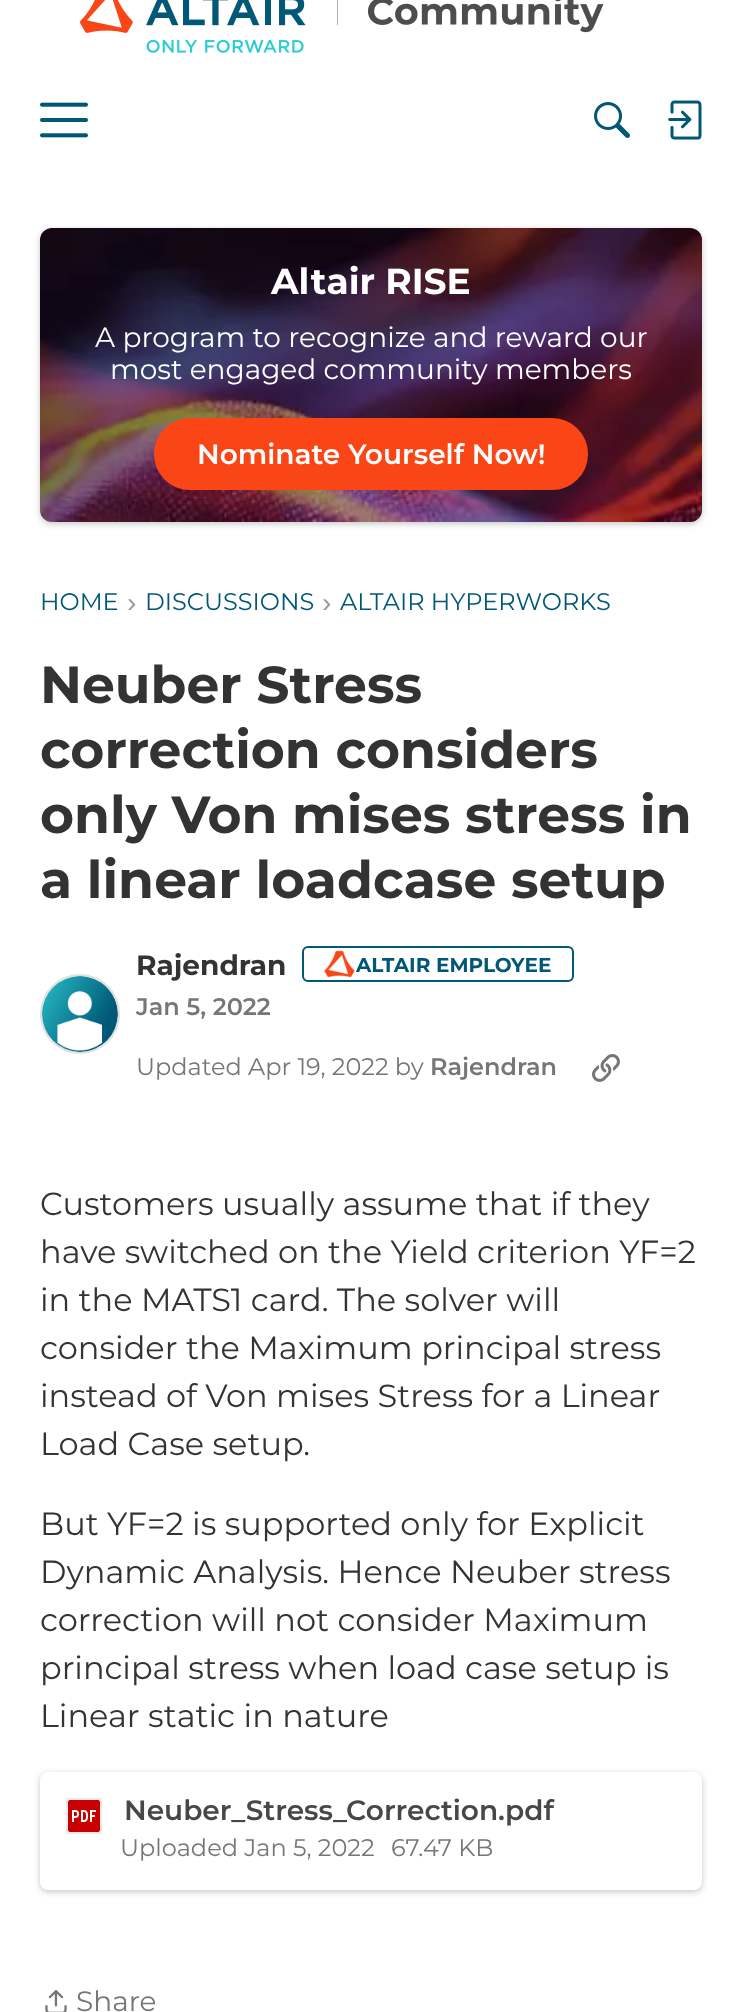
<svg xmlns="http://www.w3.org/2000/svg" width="742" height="2012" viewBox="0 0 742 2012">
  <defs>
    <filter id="blur1" x="-50%" y="-200%" width="200%" height="500%"><feGaussianBlur stdDeviation="3"/></filter>
  </defs>
  <rect width="100%" height="100%" fill="#ffffff"/>
  <image x="80" y="0" width="524" height="53" href="img1.png"/>
  <image x="40" y="102" width="48" height="36" href="img2.png"/>
  <image x="594" y="102" width="36" height="36" href="img3.png"/>
  <image x="668" y="100" width="34" height="40" href="img4.png"/>
  <rect x="40" y="230" width="662" height="294" rx="12" fill="#000000" fill-opacity="0.22" filter="url(#blur1)"/>
  <image x="40" y="228" width="662" height="294" href="img5.png"/>
  <text x="271" y="294" font-family="Montserrat" font-size="36" font-weight="bold" fill="#ffffff">Altair RISE</text>
  <text x="95" y="347" font-family="Montserrat" font-size="28" fill="#ffffff">A program to recognize and reward our</text>
  <text x="110" y="379" font-family="Montserrat" font-size="28" fill="#ffffff">most engaged community members</text>
  <rect x="155" y="419" width="432" height="70" rx="35" fill="#fa4616" stroke="#fa4616" stroke-width="2"/>
  <text x="197" y="464" font-family="Montserrat" font-size="28" font-weight="600" fill="#ffffff">Nominate Yourself Now!</text>
  <text x="40" y="610" font-family="Montserrat" font-size="24" fill="#005776">HOME</text>
  <text x="127" y="612" font-family="Liberation Sans" font-size="28" fill="#999999">›</text>
  <text x="145" y="610" font-family="Montserrat" font-size="24" fill="#005776">DISCUSSIONS</text>
  <text x="322" y="612" font-family="Liberation Sans" font-size="28" fill="#999999">›</text>
  <text x="340" y="610" font-family="Montserrat" font-size="24" fill="#005776">ALTAIR HYPERWORKS</text>
  <text x="40" y="703" font-family="Montserrat" font-size="52" font-weight="bold" fill="#333333">Neuber Stress</text>
  <text x="40" y="768" font-family="Montserrat" font-size="52" font-weight="bold" fill="#333333">correction considers</text>
  <text x="40" y="833" font-family="Montserrat" font-size="52" font-weight="bold" fill="#333333">only Von mises stress in</text>
  <text x="40" y="898" font-family="Montserrat" font-size="52" font-weight="bold" fill="#333333">a linear loadcase setup</text>
  <circle cx="80" cy="1014" r="39" fill="none" stroke="#e0e0e0" stroke-width="2"/>
  <image x="42" y="976" width="76" height="76" href="img6.png"/>
  <text x="136" y="975" font-family="Montserrat" font-size="28" font-weight="bold" fill="#333333">Rajendran</text>
  <rect x="303" y="947" width="270" height="34" rx="5" fill="none" stroke="#005776" stroke-width="2"/>
  <image x="324" y="950" width="31" height="28" href="img7.png"/>
  <text x="356" y="972" font-family="Montserrat" font-size="20" font-weight="bold" fill="#005776">ALTAIR EMPLOYEE</text>
  <text x="136" y="1015" font-family="Montserrat" font-size="24" font-weight="600" fill="#767676">Jan 5, 2022</text>
  <text x="136" y="1075" font-family="Montserrat" font-size="24" fill="#767676">Updated Apr 19, 2022 by</text>
  <text x="430" y="1075" font-family="Montserrat" font-size="24" font-weight="600" fill="#767676">Rajendran</text>
  <image x="592" y="1054" width="28" height="28" href="img8.png"/>
  <text x="40" y="1215" font-family="Montserrat" font-size="32" fill="#333333">Customers usually assume that if they</text>
  <text x="40" y="1263" font-family="Montserrat" font-size="32" fill="#333333">have switched on the Yield criterion YF=2</text>
  <text x="40" y="1311" font-family="Montserrat" font-size="32" fill="#333333">in the MATS1 card. The solver will</text>
  <text x="40" y="1359" font-family="Montserrat" font-size="32" fill="#333333">consider the Maximum principal stress</text>
  <text x="40" y="1407" font-family="Montserrat" font-size="32" fill="#333333">instead of Von mises Stress for a Linear</text>
  <text x="40" y="1455" font-family="Montserrat" font-size="32" fill="#333333">Load Case setup.</text>
  <text x="40" y="1535" font-family="Montserrat" font-size="32" fill="#333333">But YF=2 is supported only for Explicit</text>
  <text x="40" y="1583" font-family="Montserrat" font-size="32" fill="#333333">Dynamic Analysis. Hence Neuber stress</text>
  <text x="40" y="1631" font-family="Montserrat" font-size="32" fill="#333333">correction will not consider Maximum</text>
  <text x="40" y="1679" font-family="Montserrat" font-size="32" fill="#333333">principal stress when load case setup is</text>
  <text x="40" y="1727" font-family="Montserrat" font-size="32" fill="#333333">Linear static in nature</text>
  <rect x="40" y="1774" width="662" height="118" rx="8" fill="#000000" fill-opacity="0.22" filter="url(#blur1)"/>
  <rect x="40" y="1772" width="662" height="118" rx="8" fill="#ffffff"/>
  <rect x="67" y="1799" width="34" height="34" fill="none" stroke="#ebebeb" stroke-width="2"/>
  <image x="68" y="1800" width="32" height="32" href="img9.png"/>
  <text x="124" y="1820" font-family="Montserrat" font-size="28" font-weight="600" fill="#474747">Neuber_Stress_Correction.pdf</text>
  <text x="120" y="1856" font-family="Montserrat" font-size="24" fill="#767676">Uploaded Jan 5, 2022</text>
  <text x="391" y="1856" font-family="Montserrat" font-size="24" fill="#767676">67.47 KB</text>
  <image x="45" y="1990" width="22" height="22" href="img10.png"/>
  <text x="76" y="2011" font-family="Montserrat" font-size="28" fill="#767676">Share</text>
</svg>
